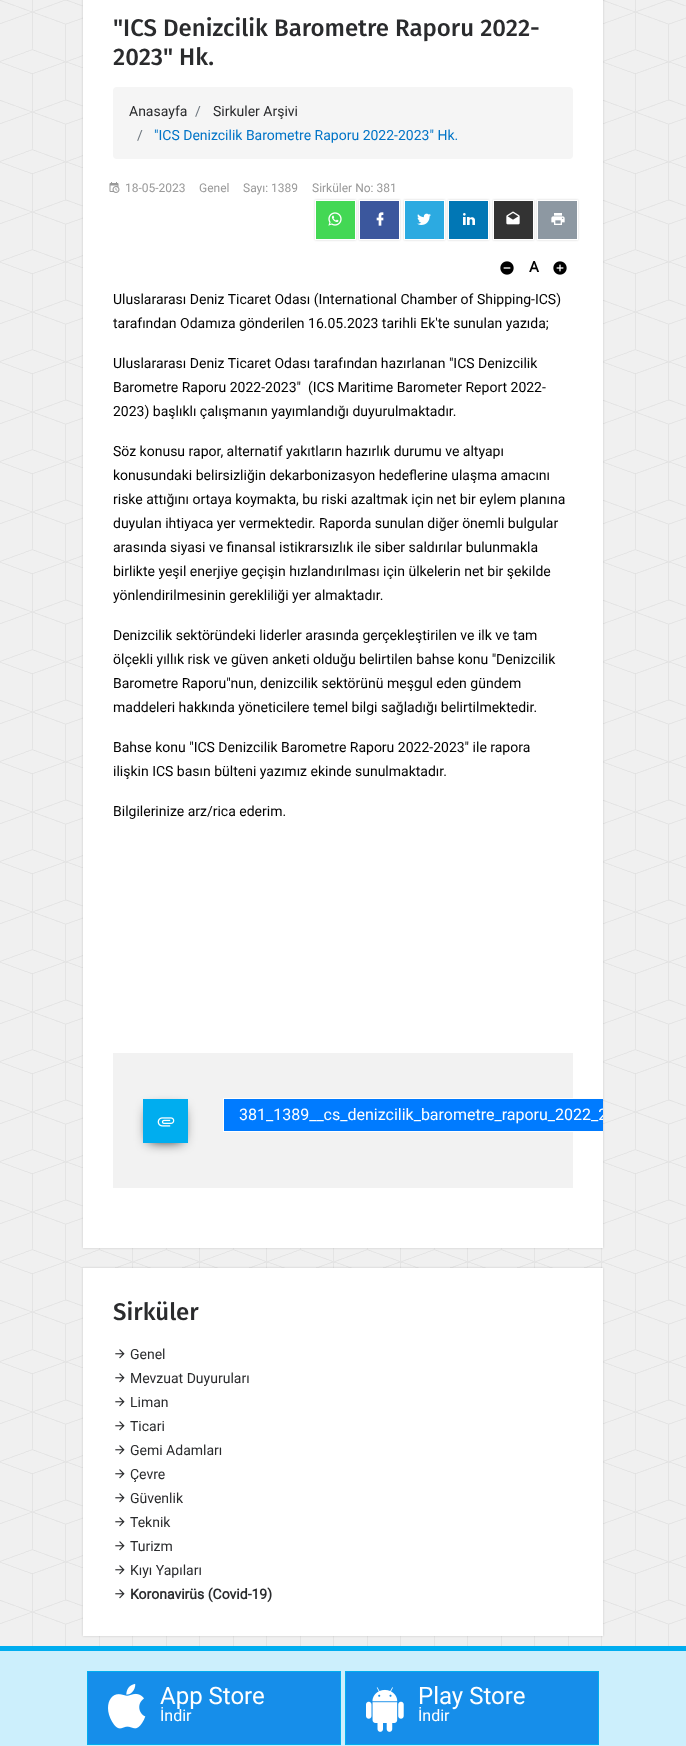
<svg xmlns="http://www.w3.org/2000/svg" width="686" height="1746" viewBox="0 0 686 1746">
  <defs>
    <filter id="blur1" x="-50%" y="-200%" width="200%" height="500%"><feGaussianBlur stdDeviation="1"/></filter>
    <filter id="blur2" x="-50%" y="-200%" width="200%" height="500%"><feGaussianBlur stdDeviation="6.5"/></filter>
    <clipPath id="clip1"><rect x="83" y="0" width="520" height="1248"/></clipPath>
  </defs>
  <rect width="100%" height="100%" fill="#f0f0f0"/>
  <image x="0" y="0" width="686" height="1646" href="img1.png"/>
  <rect x="83" y="-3" width="520" height="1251" fill="#000000" fill-opacity="0.18" filter="url(#blur1)"/>
  <rect x="83" y="0" width="520" height="1248" fill="#ffffff"/>
  <text x="113" y="36" font-family="Fira Sans" font-size="24" font-weight="500" fill="#2a2b2d">"ICS Denizcilik Barometre Raporu 2022-</text>
  <text x="113" y="65" font-family="Fira Sans" font-size="24" font-weight="500" fill="#2a2b2d">2023" Hk.</text>
  <rect x="113" y="87" width="460" height="72" rx="4" fill="#f5f5f5"/>
  <text x="129" y="116" font-family="Roboto" font-size="14" fill="#2a2b2d">Anasayfa</text>
  <text x="195" y="116" font-family="Roboto" font-size="14" fill="#6c757d">/</text>
  <text x="213" y="116" font-family="Roboto" font-size="14" fill="#2a2b2d">Sirkuler Arşivi</text>
  <text x="137" y="140" font-family="Roboto" font-size="14" fill="#6c757d">/</text>
  <text x="154" y="140" font-family="Roboto" font-size="14" fill="#0074c7">"ICS Denizcilik Barometre Raporu 2022-2023" Hk.</text>
  <image x="109" y="182" width="11" height="11" href="img2.png"/>
  <text x="125" y="192" font-family="Roboto" font-size="12" fill="#999999">18-05-2023</text>
  <text x="199" y="192" font-family="Roboto" font-size="12" fill="#999999">Genel</text>
  <text x="243" y="192" font-family="Roboto" font-size="12" fill="#999999">Sayı: 1389</text>
  <text x="312" y="192" font-family="Roboto" font-size="12" fill="#999999">Sirküler No: 381</text>
  <rect x="315" y="200" width="41" height="40" fill="#000000" fill-opacity="0.18" filter="url(#blur1)"/>
  <rect x="315.5" y="200.5" width="40" height="39" fill="#43d854" stroke="#ffffff"/>
  <image x="328" y="212" width="14" height="14" href="img3.png"/>
  <rect x="359" y="200" width="41" height="40" fill="#000000" fill-opacity="0.18" filter="url(#blur1)"/>
  <rect x="359.5" y="200.5" width="40" height="39" fill="#3b579d" stroke="#ffffff"/>
  <image x="376" y="212" width="8" height="14" href="img4.png"/>
  <rect x="404" y="200" width="41" height="40" fill="#000000" fill-opacity="0.18" filter="url(#blur1)"/>
  <rect x="404.5" y="200.5" width="40" height="39" fill="#2caae1" stroke="#ffffff"/>
  <image x="417" y="213" width="14" height="12" href="img5.png"/>
  <rect x="448" y="200" width="41" height="40" fill="#000000" fill-opacity="0.18" filter="url(#blur1)"/>
  <rect x="448.5" y="200.5" width="40" height="39" fill="#0177b5" stroke="#ffffff"/>
  <image x="463" y="213" width="12" height="12" href="img6.png"/>
  <rect x="493" y="200" width="41" height="40" fill="#000000" fill-opacity="0.18" filter="url(#blur1)"/>
  <rect x="493.5" y="200.5" width="40" height="39" fill="#333333" stroke="#ffffff"/>
  <image x="506" y="211" width="14" height="14" href="img7.png"/>
  <rect x="537" y="200" width="41" height="40" fill="#000000" fill-opacity="0.18" filter="url(#blur1)"/>
  <rect x="537.5" y="200.5" width="40" height="39" fill="#8d98a2" stroke="#ffffff"/>
  <image x="551" y="213" width="14" height="12" href="img8.png"/>
  <image x="500" y="261" width="14" height="14" href="img9.png"/>
  <text x="529" y="272" font-family="Roboto" font-size="15" font-weight="bold" fill="#000000">A</text>
  <image x="553" y="261" width="14" height="14" href="img10.png"/>
  <text x="113" y="304" font-family="Roboto" font-size="14" fill="#000000">Uluslararası Deniz Ticaret Odası (International Chamber of Shipping-ICS)</text>
  <text x="113" y="328" font-family="Roboto" font-size="14" fill="#000000">tarafından Odamıza gönderilen 16.05.2023 tarihli Ek'te sunulan yazıda;</text>
  <text x="113" y="368" font-family="Roboto" font-size="14" fill="#000000">Uluslararası Deniz Ticaret Odası tarafından hazırlanan "ICS Denizcilik</text>
  <text x="113" y="392" font-family="Roboto" font-size="14" fill="#000000" xml:space="preserve">Barometre Raporu 2022-2023"  (ICS Maritime Barometer Report 2022-</text>
  <text x="113" y="416" font-family="Roboto" font-size="14" fill="#000000">2023) başlıklı çalışmanın yayımlandığı duyurulmaktadır.</text>
  <text x="113" y="456" font-family="Roboto" font-size="14" fill="#000000">Söz konusu rapor, alternatif yakıtların hazırlık durumu ve altyapı</text>
  <text x="113" y="480" font-family="Roboto" font-size="14" fill="#000000">konusundaki belirsizliğin dekarbonizasyon hedeflerine ulaşma amacını</text>
  <text x="113" y="504" font-family="Roboto" font-size="14" fill="#000000">riske attığını ortaya koymakta, bu riski azaltmak için net bir eylem planına</text>
  <text x="113" y="528" font-family="Roboto" font-size="14" fill="#000000">duyulan ihtiyaca yer vermektedir. Raporda sunulan diğer önemli bulgular</text>
  <text x="113" y="552" font-family="Roboto" font-size="14" fill="#000000">arasında siyasi ve finansal istikrarsızlık ile siber saldırılar bulunmakla</text>
  <text x="113" y="576" font-family="Roboto" font-size="14" fill="#000000">birlikte yeşil enerjiye geçişin hızlandırılması için ülkelerin net bir şekilde</text>
  <text x="113" y="600" font-family="Roboto" font-size="14" fill="#000000">yönlendirilmesinin gerekliliği yer almaktadır.</text>
  <text x="113" y="640" font-family="Roboto" font-size="14" fill="#000000">Denizcilik sektöründeki liderler arasında gerçekleştirilen ve ilk ve tam</text>
  <text x="113" y="664" font-family="Roboto" font-size="14" fill="#000000">ölçekli yıllık risk ve güven anketi olduğu belirtilen bahse konu "Denizcilik</text>
  <text x="113" y="688" font-family="Roboto" font-size="14" fill="#000000">Barometre Raporu"nun, denizcilik sektörünü meşgul eden gündem</text>
  <text x="113" y="712" font-family="Roboto" font-size="14" fill="#000000">maddeleri hakkında yöneticilere temel bilgi sağladığı belirtilmektedir.</text>
  <text x="113" y="752" font-family="Roboto" font-size="14" fill="#000000">Bahse konu "ICS Denizcilik Barometre Raporu 2022-2023" ile rapora</text>
  <text x="113" y="776" font-family="Roboto" font-size="14" fill="#000000">ilişkin ICS basın bülteni yazımız ekinde sunulmaktadır.</text>
  <text x="113" y="816" font-family="Roboto" font-size="14" fill="#000000">Bilgilerinize arz/rica ederim.</text>
  <rect x="113" y="1053" width="460" height="135" fill="#f2f2f2"/>
  <rect x="149" y="1109" width="33" height="32" fill="#000000" filter="url(#blur2)"/>
  <rect x="143" y="1099" width="45" height="44" fill="#00adef"/>
  <image x="157" y="1117" width="18" height="10" href="img11.png"/>
  <rect x="224" y="1099" width="379" height="32" fill="#007bff"/>
  <g clip-path="url(#clip1)">
    <rect x="223.5" y="1098.5" width="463" height="33" fill="none" stroke="#ffffff"/>
    <text x="239" y="1120" font-family="Roboto" font-size="16" fill="#ffffff">381_1389__cs_denizcilik_barometre_raporu_2022_2</text>
  </g>
  <rect x="83" y="1268" width="520" height="368" fill="#000000" fill-opacity="0.18" filter="url(#blur1)"/>
  <rect x="83" y="1268" width="520" height="368" fill="#ffffff"/>
  <text x="113" y="1320" font-family="Fira Sans" font-size="24" font-weight="500" fill="#2a2b2d">Sirküler</text>
  <image x="115" y="1349" width="10" height="10" href="img12.png"/>
  <text x="130" y="1359" font-family="Roboto" font-size="14" fill="#2a2b2d">Genel</text>
  <image x="115" y="1373" width="10" height="10" href="img12.png"/>
  <text x="130" y="1383" font-family="Roboto" font-size="14" fill="#2a2b2d">Mevzuat Duyuruları</text>
  <image x="115" y="1397" width="10" height="10" href="img12.png"/>
  <text x="130" y="1407" font-family="Roboto" font-size="14" fill="#2a2b2d">Liman</text>
  <image x="115" y="1421" width="10" height="10" href="img12.png"/>
  <text x="130" y="1431" font-family="Roboto" font-size="14" fill="#2a2b2d">Ticari</text>
  <image x="115" y="1445" width="10" height="10" href="img12.png"/>
  <text x="130" y="1455" font-family="Roboto" font-size="14" fill="#2a2b2d">Gemi Adamları</text>
  <image x="115" y="1469" width="10" height="10" href="img12.png"/>
  <text x="130" y="1479" font-family="Roboto" font-size="14" fill="#2a2b2d">Çevre</text>
  <image x="115" y="1493" width="10" height="10" href="img12.png"/>
  <text x="130" y="1503" font-family="Roboto" font-size="14" fill="#2a2b2d">Güvenlik</text>
  <image x="115" y="1517" width="10" height="10" href="img12.png"/>
  <text x="130" y="1527" font-family="Roboto" font-size="14" fill="#2a2b2d">Teknik</text>
  <image x="115" y="1541" width="10" height="10" href="img12.png"/>
  <text x="130" y="1551" font-family="Roboto" font-size="14" fill="#2a2b2d">Turizm</text>
  <image x="115" y="1565" width="10" height="10" href="img12.png"/>
  <text x="130" y="1575" font-family="Roboto" font-size="14" fill="#2a2b2d">Kıyı Yapıları</text>
  <image x="115" y="1589" width="10" height="10" href="img12.png"/>
  <text x="130" y="1599" font-family="Roboto" font-size="14" font-weight="bold" fill="#2a2b2d">Koronavirüs (Covid-19)</text>
  <rect x="0" y="1651" width="686" height="95" fill="#cceffc"/>
  <rect x="0" y="1646" width="686" height="5" fill="#00adef"/>
  <rect x="87.5" y="1671.5" width="253" height="73" fill="#168eea" stroke="#00adef"/>
  <image x="108" y="1683" width="38" height="46" href="img13.png"/>
  <text x="160" y="1704" font-family="Roboto" font-size="24" fill="#ffffff">App Store</text>
  <text x="160" y="1721" font-family="Roboto" font-size="16" fill="#ffffff">İndir</text>
  <rect x="345.5" y="1671.5" width="253" height="73" fill="#168eea" stroke="#00adef"/>
  <image x="366" y="1687" width="38" height="45" href="img14.png"/>
  <text x="418" y="1704" font-family="Roboto" font-size="24" fill="#ffffff">Play Store</text>
  <text x="418" y="1721" font-family="Roboto" font-size="16" fill="#ffffff">İndir</text>
</svg>
